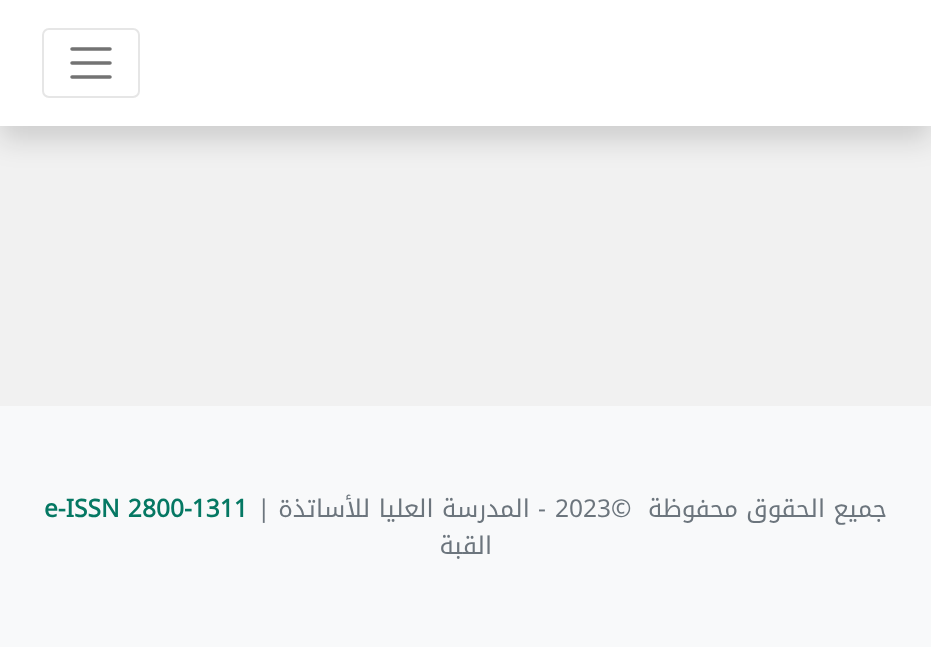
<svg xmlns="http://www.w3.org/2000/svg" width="931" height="647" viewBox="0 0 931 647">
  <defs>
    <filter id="blur1" x="-50%" y="-200%" width="200%" height="500%"><feGaussianBlur stdDeviation="14"/></filter>
  </defs>
  <rect width="100%" height="100%" fill="#f1f1f1"/>
  <rect x="0" y="14" width="931" height="126" fill="#000000" fill-opacity="0.15" filter="url(#blur1)"/>
  <rect x="0" y="0" width="931" height="126" fill="#ffffff"/>
  <rect x="43" y="29" width="96" height="68" rx="6" fill="none" stroke="#e6e6e6" stroke-width="2"/>
  <path d="M72 49H110M72 63H110M72 77H110" fill="none" stroke="#737373" stroke-width="3.5" stroke-linecap="round"/>
  <rect x="0" y="406" width="931" height="241" fill="#f8f9fa"/>
  <text x="887" y="517" font-family="Noto Kufi Arabic" font-size="24.5" direction="rtl" fill="#6c757d">جميع الحقوق محفوظة</text>
  <text x="555" y="517" font-family="Noto Kufi Arabic" font-size="24.5" fill="#6c757d">2023©</text>
  <text x="546" y="517" font-family="Noto Kufi Arabic" font-size="24.5" direction="rtl" fill="#6c757d">- المدرسة العليا للأساتذة</text>
  <text x="257" y="517" font-family="Noto Kufi Arabic" font-size="24.5" fill="#6c757d">|</text>
  <text x="44" y="517" font-family="Noto Kufi Arabic" font-size="24.5" font-weight="bold" fill="#057863">e-ISSN 2800-1311</text>
  <text x="492" y="554" font-family="Noto Kufi Arabic" font-size="24.5" direction="rtl" fill="#6c757d">القبة</text>
</svg>
